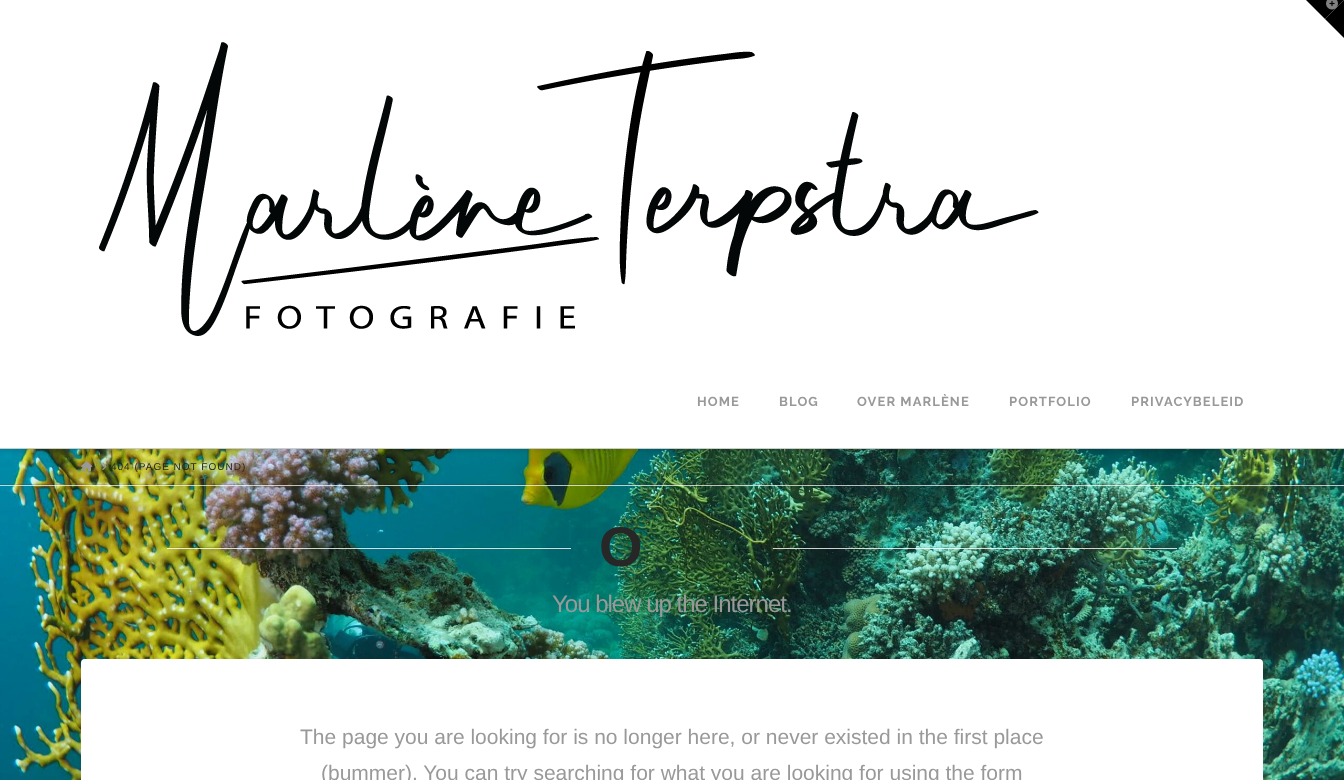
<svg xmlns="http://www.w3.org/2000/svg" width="1344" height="780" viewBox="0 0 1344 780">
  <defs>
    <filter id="blur1" x="-50%" y="-200%" width="200%" height="500%"><feGaussianBlur stdDeviation="2.5"/></filter>
  </defs>
  <rect width="100%" height="100%" fill="#ffffff"/>
  <image x="0" y="449" width="1344" height="331" href="img5.png"/>
  <rect x="0" y="2" width="1344" height="449" fill="#000000" fill-opacity="0.13" filter="url(#blur1)"/>
  <rect x="0" y="0" width="1344" height="448" fill="#ffffff"/>
  <path d="M1306 0H1344L1325 19Z" fill="#000000"/>
  <path d="M1344 0V38L1325 19Z" fill="#000000"/>
  <image x="1326" y="0" width="12" height="10" href="img1.png"/>
  <rect x="0" y="448" width="1344" height="1" fill="#cccccc"/>
  <image x="99" y="42" width="940" height="294" href="img2.png"/>
  <text x="697" y="406" font-family="Raleway" font-size="13" font-weight="bold" letter-spacing="1.1" fill="#999999">HOME</text>
  <text x="779" y="406" font-family="Raleway" font-size="13" font-weight="bold" letter-spacing="1.1" fill="#999999">BLOG</text>
  <text x="857" y="406" font-family="Raleway" font-size="13" font-weight="bold" letter-spacing="1.1" fill="#999999">OVER MARLÈNE</text>
  <text x="1009" y="406" font-family="Raleway" font-size="13" font-weight="bold" letter-spacing="1.1" fill="#999999">PORTFOLIO</text>
  <text x="1131" y="406" font-family="Raleway" font-size="13" font-weight="bold" letter-spacing="1.1" fill="#999999">PRIVACYBELEID</text>
  <rect x="0" y="485" width="1344" height="1" fill="#ffffff" fill-opacity="0.71"/>
  <rect x="0" y="484" width="1344" height="1" fill="#000000" fill-opacity="0.1"/>
  <image x="81" y="461" width="12" height="11" href="img3.png"/>
  <image x="102" y="462" width="5" height="8" href="img4.png"/>
  <text x="111" y="470" font-family="Liberation Sans" font-size="10" letter-spacing="1" fill="#272727">404 (PAGE NOT FOUND)</text>
  <rect x="167" y="548" width="404" height="1" fill="#ffffff" fill-opacity="0.8"/>
  <rect x="167" y="547" width="404" height="1" fill="#000000" fill-opacity="0.1"/>
  <text x="599" y="566" font-family="Liberation Sans" font-size="56" font-weight="bold" letter-spacing="-3" fill="#272727">O</text>
  <rect x="773" y="548" width="404" height="1" fill="#ffffff" fill-opacity="0.8"/>
  <rect x="773" y="547" width="404" height="1" fill="#000000" fill-opacity="0.1"/>
  <text x="552" y="612" font-family="Liberation Sans" font-size="24" letter-spacing="-1" fill="#999999">You blew up the Internet.</text>
  <rect x="81" y="661" width="1182" height="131" rx="4" fill="#000000" fill-opacity="0.13" filter="url(#blur1)"/>
  <rect x="81" y="659" width="1182" height="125" rx="4" fill="#ffffff"/>
  <text x="300" y="744" font-family="Liberation Sans" font-size="21" fill="#999999">The page you are looking for is no longer here, or never existed in the first place</text>
  <text x="321" y="780" font-family="Liberation Sans" font-size="21" fill="#999999">(bummer). You can try searching for what you are looking for using the form</text>
</svg>
